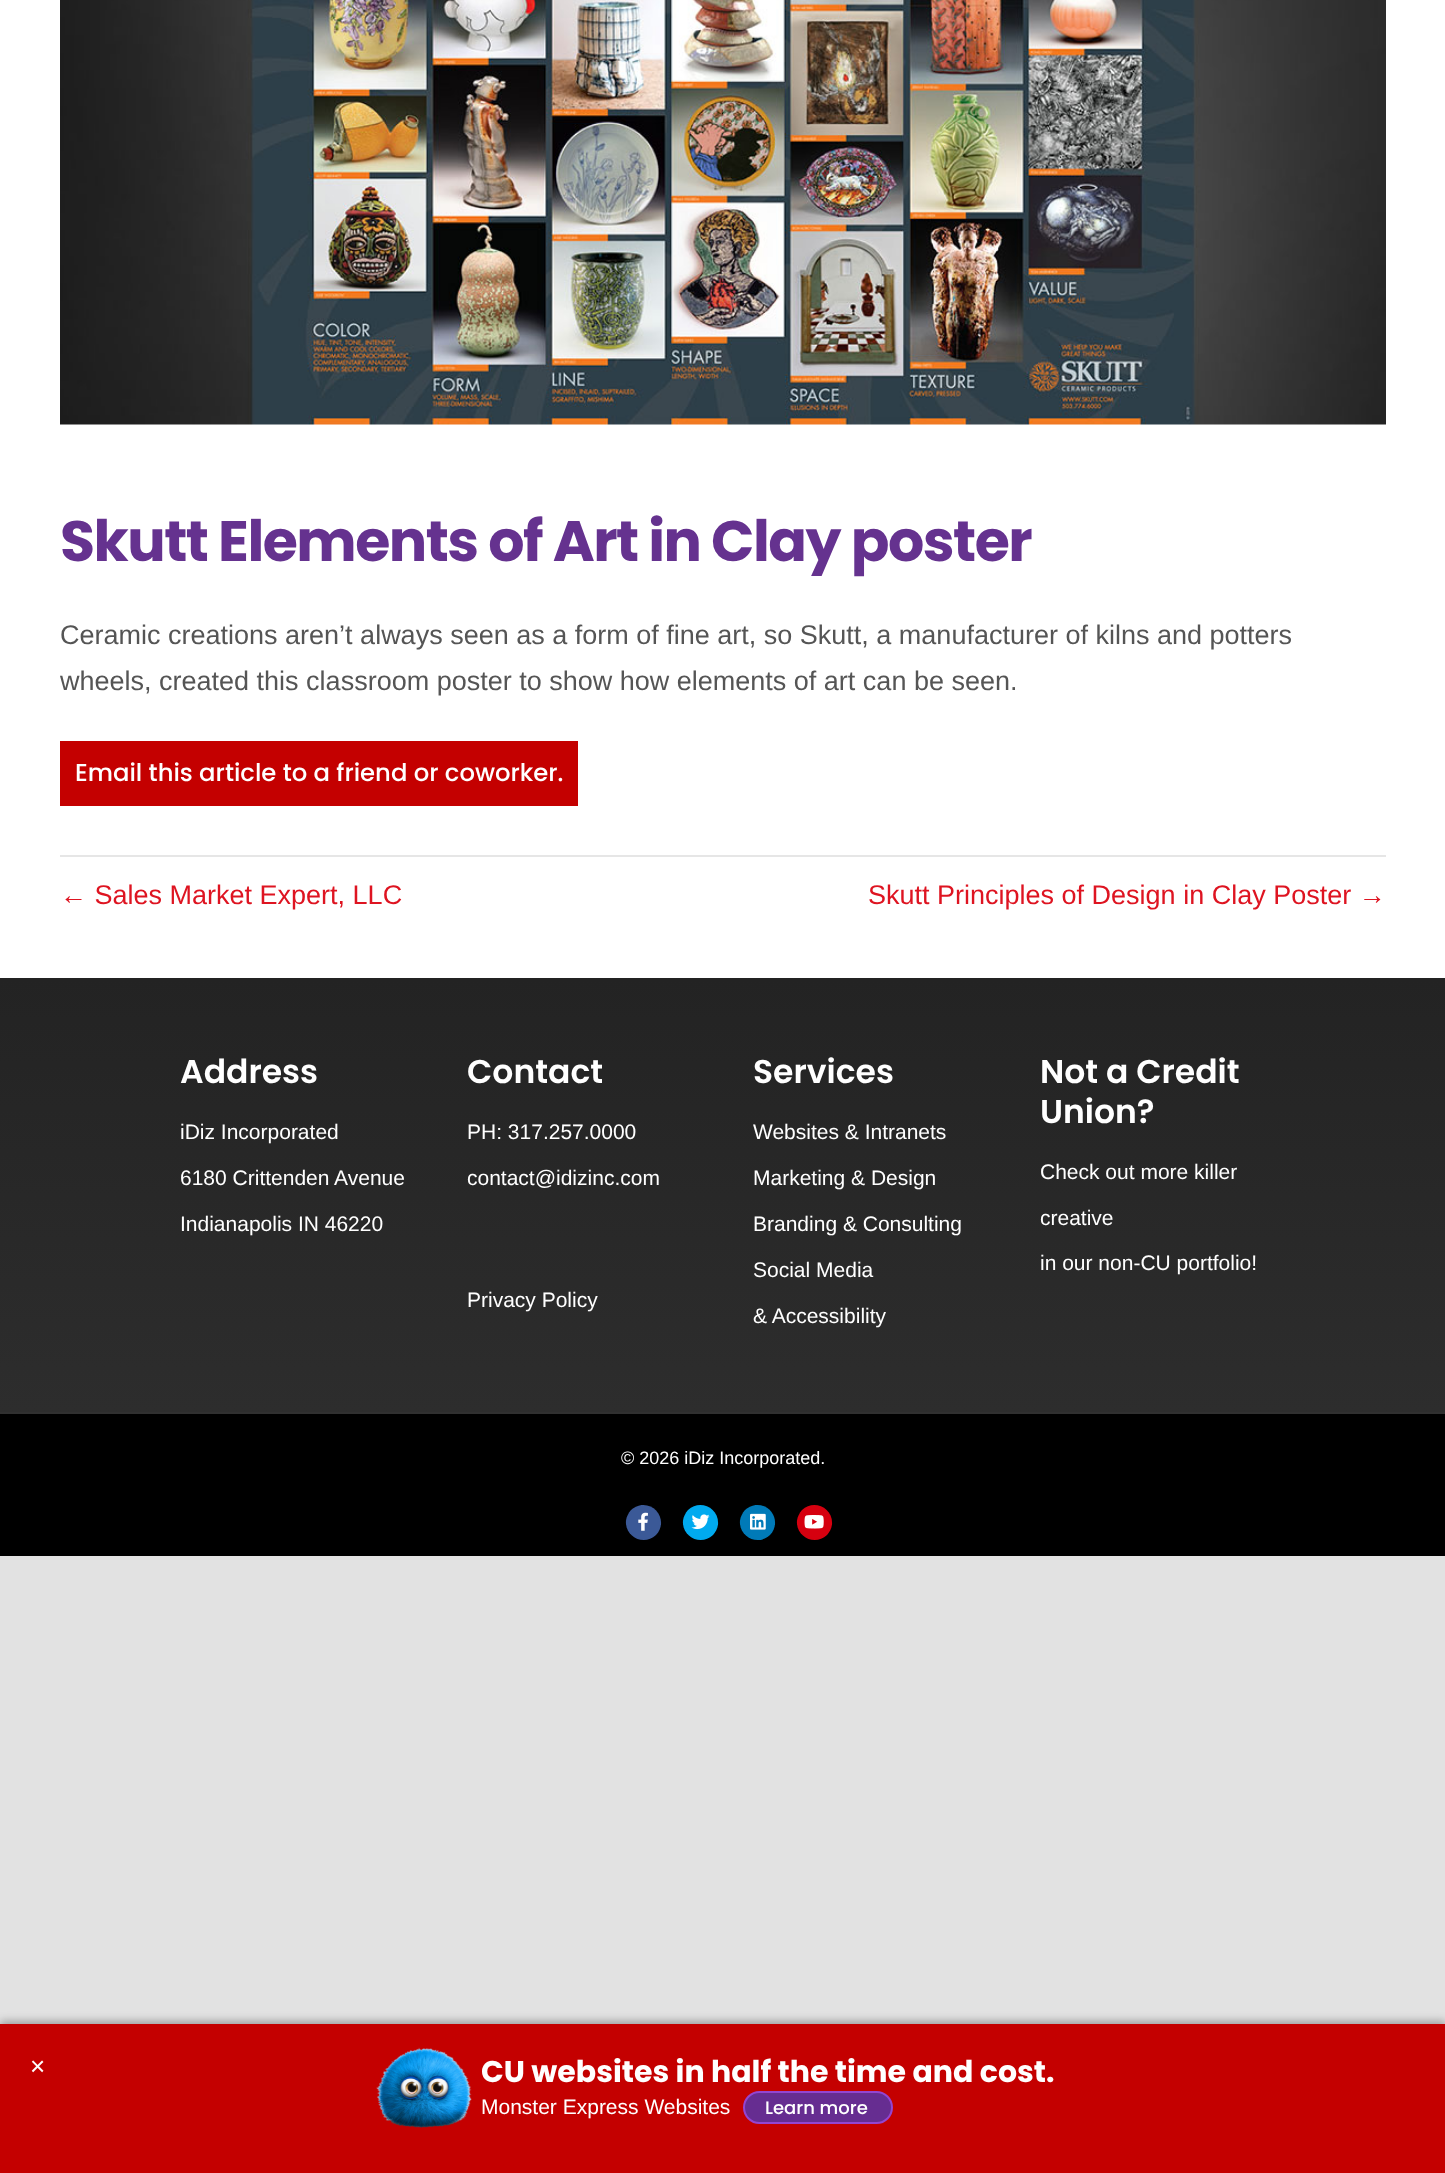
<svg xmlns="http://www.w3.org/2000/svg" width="1445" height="2173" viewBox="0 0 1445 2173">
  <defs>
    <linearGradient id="g1" gradientUnits="userSpaceOnUse" x1="723" y1="978" x2="723" y2="1412"><stop offset="0" stop-color="#232323"/><stop offset="1" stop-color="#2d2d2d"/></linearGradient>
    <filter id="blur1" x="-50%" y="-200%" width="200%" height="500%"><feGaussianBlur stdDeviation="4.5"/></filter>
  </defs>
  <rect width="100%" height="100%" fill="#e2e2e2"/>
  <rect x="0" y="0" width="1445" height="978" fill="#ffffff"/>
  <image x="60" y="0" width="1326" height="425" href="img1.png"/>
  <text x="60" y="561" font-family="Poppins" font-size="57" font-weight="bold" letter-spacing="-1.5" fill="#65328f">Skutt Elements of Art in Clay poster</text>
  <text x="60" y="644" font-family="Liberation Sans" font-size="27" fill="#555555">Ceramic creations aren’t always seen as a form of fine art, so Skutt, a manufacturer of kilns and potters</text>
  <text x="60" y="690" font-family="Liberation Sans" font-size="27" fill="#555555">wheels, created this classroom poster to show how elements of art can be seen.</text>
  <rect x="60" y="741" width="518" height="65" fill="#c40000"/>
  <text x="75" y="781" font-family="Poppins" font-size="24.3" font-weight="500" fill="#ffffff">Email this article to a friend or coworker.</text>
  <rect x="60" y="855" width="1326" height="2" fill="#e6e6e6"/>
  <text x="60" y="904" font-family="Liberation Sans" font-size="27" fill="#de1421">← Sales Market Expert, LLC</text>
  <text x="868" y="904" font-family="Liberation Sans" font-size="27" fill="#de1421">Skutt Principles of Design in Clay Poster →</text>
  <rect x="0" y="978" width="1445" height="434" fill="url(#g1)"/>
  <text x="180" y="1083" font-family="Poppins" font-size="33" font-weight="600" fill="#ffffff">Address</text>
  <text x="180" y="1139" font-family="Liberation Sans" font-size="21" fill="#ffffff">iDiz Incorporated</text>
  <text x="180" y="1185" font-family="Liberation Sans" font-size="21" fill="#ffffff">6180 Crittenden Avenue</text>
  <text x="180" y="1231" font-family="Liberation Sans" font-size="21" fill="#ffffff">Indianapolis IN 46220</text>
  <text x="467" y="1083" font-family="Poppins" font-size="33" font-weight="600" fill="#ffffff">Contact</text>
  <text x="467" y="1139" font-family="Liberation Sans" font-size="21" fill="#ffffff">PH: 317.257.0000</text>
  <text x="467" y="1185" font-family="Liberation Sans" font-size="21" fill="#ffffff">contact@idizinc.com</text>
  <text x="467" y="1307" font-family="Liberation Sans" font-size="21" fill="#ffffff">Privacy Policy</text>
  <text x="753" y="1083" font-family="Poppins" font-size="33" font-weight="600" fill="#ffffff">Services</text>
  <text x="753" y="1139" font-family="Liberation Sans" font-size="21" fill="#ffffff">Websites &amp; Intranets</text>
  <text x="753" y="1185" font-family="Liberation Sans" font-size="21" fill="#ffffff">Marketing &amp; Design</text>
  <text x="753" y="1231" font-family="Liberation Sans" font-size="21" fill="#ffffff">Branding &amp; Consulting</text>
  <text x="753" y="1277" font-family="Liberation Sans" font-size="21" fill="#ffffff">Social Media</text>
  <text x="753" y="1323" font-family="Liberation Sans" font-size="21" fill="#ffffff">&amp; Accessibility</text>
  <text x="1040" y="1083" font-family="Poppins" font-size="33" font-weight="600" fill="#ffffff">Not a Credit</text>
  <text x="1040" y="1123" font-family="Poppins" font-size="33" font-weight="600" fill="#ffffff">Union?</text>
  <text x="1040" y="1179" font-family="Liberation Sans" font-size="21" fill="#ffffff">Check out more killer</text>
  <text x="1040" y="1225" font-family="Liberation Sans" font-size="21" fill="#ffffff">creative</text>
  <text x="1040" y="1270" font-family="Liberation Sans" font-size="21" fill="#ffffff">in our non-CU portfolio!</text>
  <rect x="0" y="1414" width="1445" height="142" fill="#000000"/>
  <rect x="0" y="1412" width="1445" height="2" fill="#303030"/>
  <text x="621" y="1464" font-family="Liberation Sans" font-size="18" fill="#ffffff">© 2026 iDiz Incorporated.</text>
  <path d="M631 1510C634 1507.5 637.5 1505.5 641.5 1505C658 1503.5 667.5 1523 656 1535C644 1546.5 624.5 1537 626 1520.5C626.5 1516.5 628.5 1513 631 1510Z" fill="#3b5997"/>
  <image x="638" y="1512" width="10" height="19" href="img2.png"/>
  <path d="M688 1510C700 1498.5 719.5 1508 718 1524.5C717.5 1528.5 715.5 1532 713 1535C701 1546.5 681.5 1537 683 1520.5C683.5 1516.5 685.5 1513 688 1510Z" fill="#00aaef"/>
  <image x="691" y="1514" width="19" height="16" href="img3.png"/>
  <path d="M745 1510C748 1507.5 751.5 1505.5 755.5 1505C772 1503.5 781.5 1523 770 1535C758 1546.5 738.5 1537 740 1520.5C740.5 1516.5 742.5 1513 745 1510Z" fill="#007ab8"/>
  <image x="750" y="1513" width="16" height="17" href="img4.png"/>
  <path d="M802 1510C814 1498.5 833.5 1508 832 1524.5C831.5 1528.5 829.5 1532 827 1535C815 1546.5 795.5 1537 797 1520.5C797.5 1516.5 799.5 1513 802 1510Z" fill="#d6000f"/>
  <image x="804" y="1515" width="20" height="14" href="img5.png"/>
  <rect x="0" y="2021" width="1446" height="150" fill="#000000" fill-opacity="0.3" filter="url(#blur1)"/>
  <rect x="0" y="2024" width="1445" height="149" fill="#c40000"/>
  <text x="30" y="2075" font-family="Liberation Sans" font-size="26" fill="#ffffff">×</text>
  <image x="376" y="2047" width="96" height="81" href="img6.png"/>
  <text x="481" y="2082" font-family="Poppins" font-size="30" font-weight="bold" fill="#ffffff">CU websites in half the time and cost.</text>
  <text x="481" y="2114" font-family="Liberation Sans" font-size="21" fill="#ffffff">Monster Express Websites</text>
  <rect x="744" y="2092" width="148" height="31" rx="15.5" fill="#662d91" stroke="#9445d1" stroke-width="2"/>
  <text x="765" y="2114" font-family="Poppins" font-size="18" font-weight="500" fill="#ffffff">Learn more</text>
</svg>
